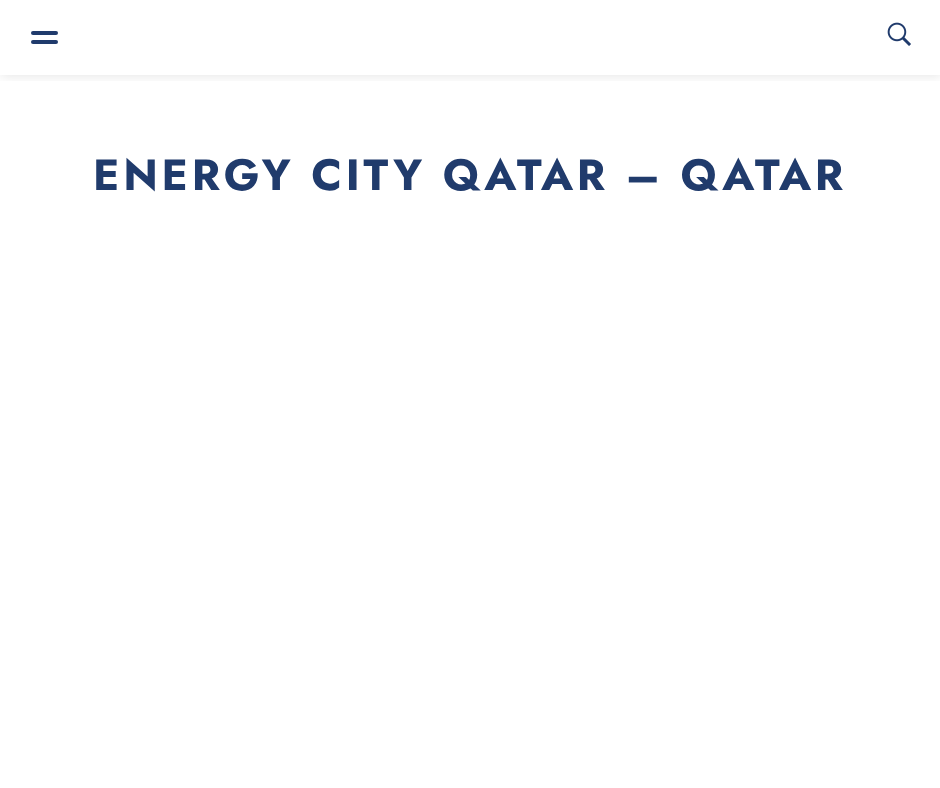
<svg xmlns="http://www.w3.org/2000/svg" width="940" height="788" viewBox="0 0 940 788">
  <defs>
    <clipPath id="clip1"><rect x="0" y="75" width="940" height="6"/></clipPath>
    <filter id="blur1" x="-50%" y="-200%" width="200%" height="500%"><feGaussianBlur stdDeviation="6"/></filter>
  </defs>
  <rect width="100%" height="100%" fill="#ffffff"/>
  <g clip-path="url(#clip1)">
    <rect x="1" y="1" width="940" height="75" fill="#000000" fill-opacity="0.1" filter="url(#blur1)"/>
  </g>
  <rect x="31" y="31" width="27" height="4" rx="2" fill="#203b6c"/>
  <rect x="31" y="40" width="27" height="4" rx="2" fill="#203b6c"/>
  <image x="887" y="22" width="24" height="24" href="img1.png"/>
  <text x="93" y="190" font-family="Jost" font-size="43.75" font-weight="bold" letter-spacing="3.75" fill="#203b6c">ENERGY CITY QATAR – QATAR</text>
</svg>
